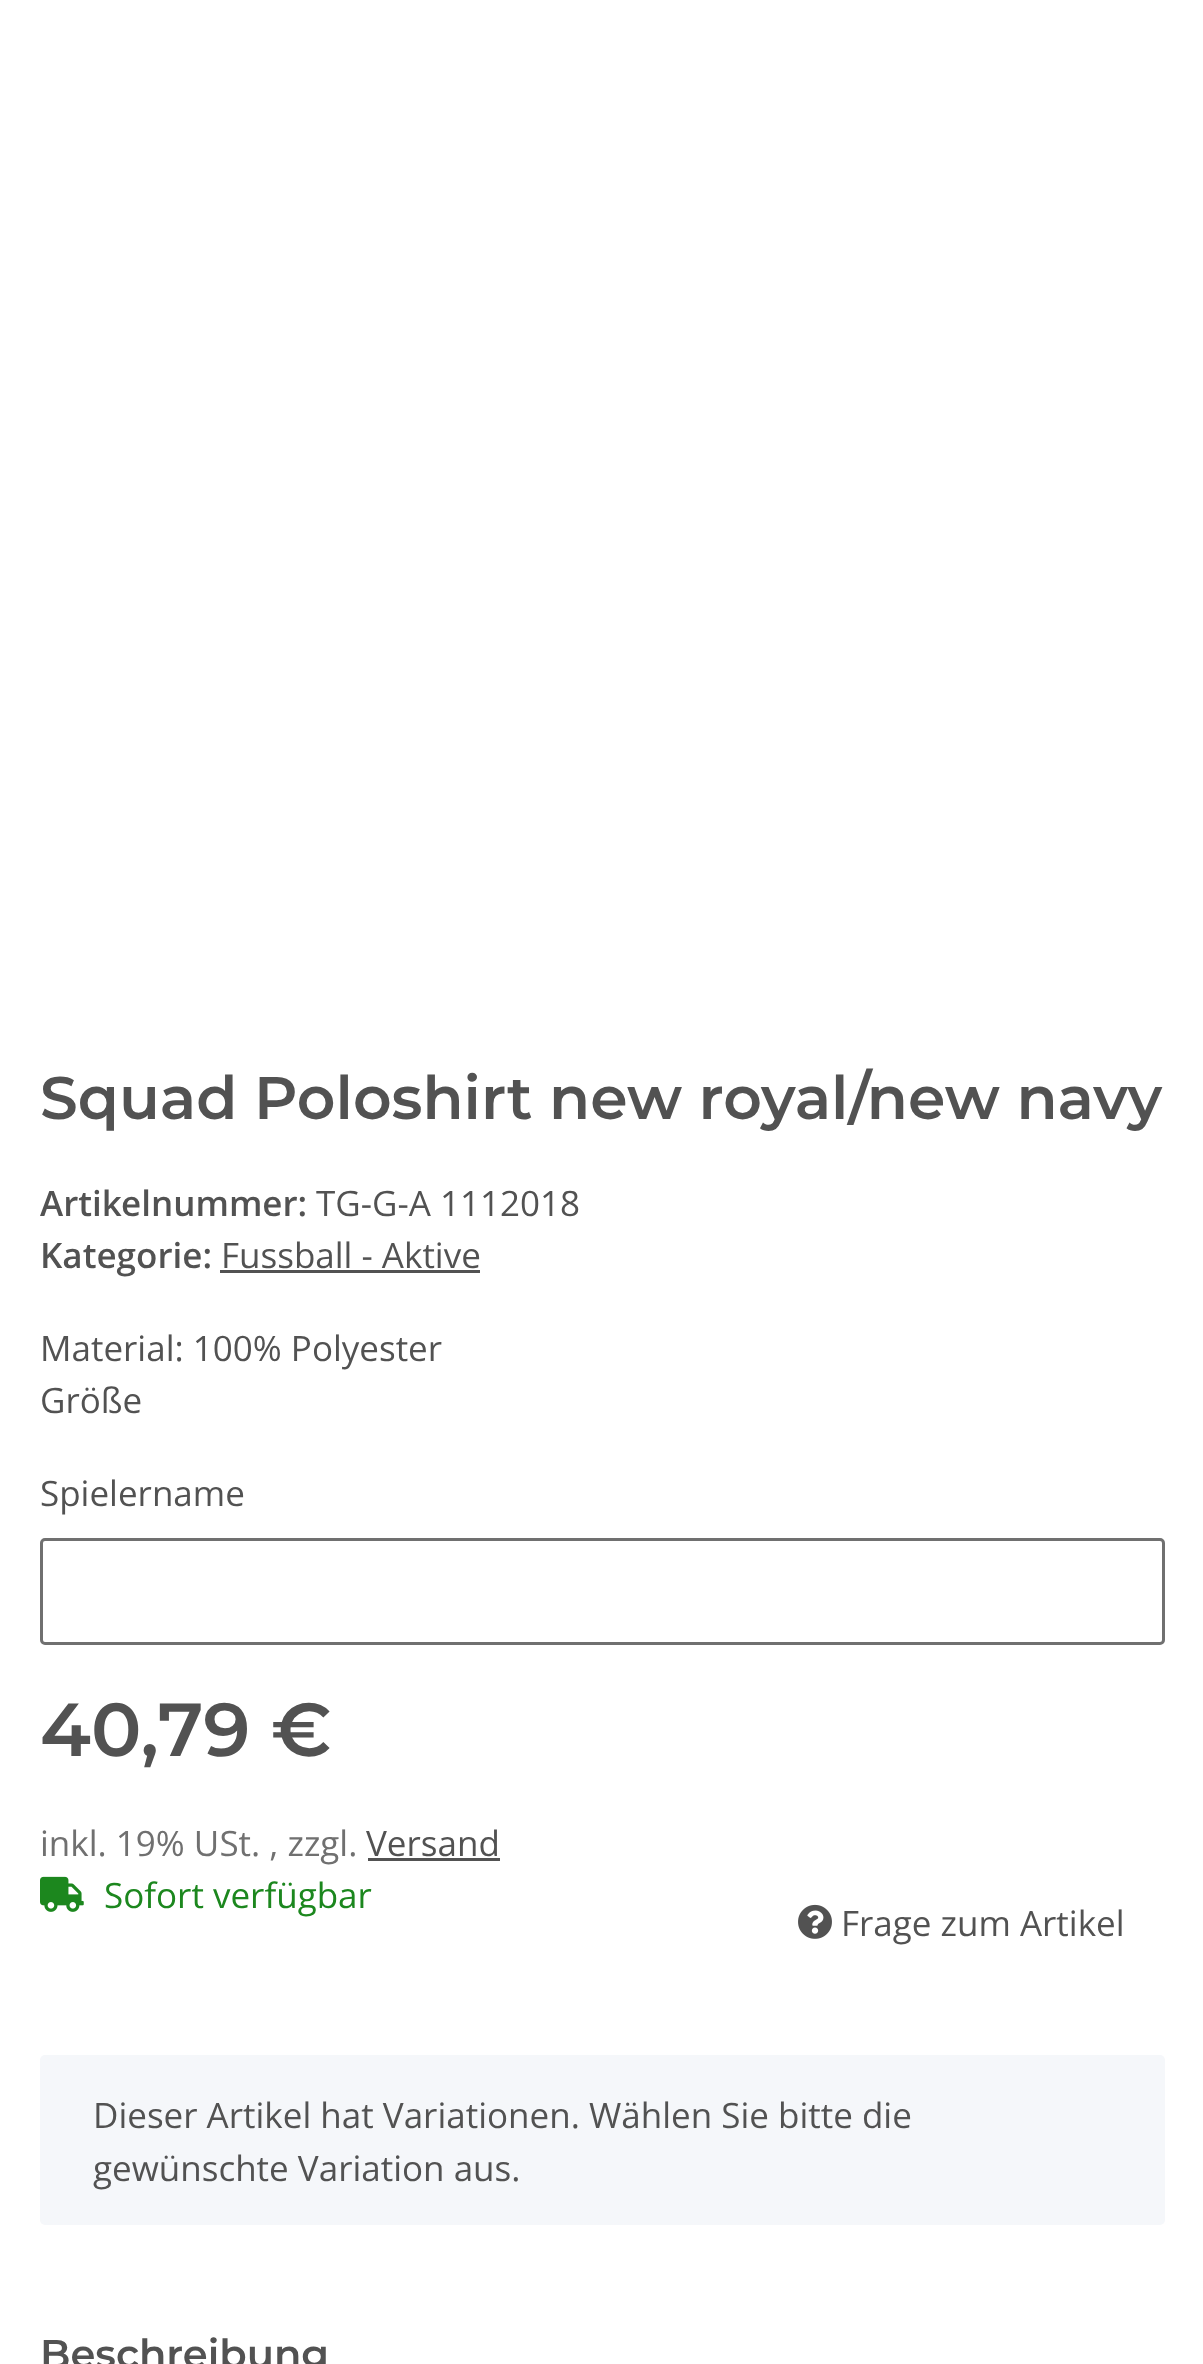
<svg xmlns="http://www.w3.org/2000/svg" width="1203" height="2364" viewBox="0 0 1203 2364">
  <rect width="100%" height="100%" fill="#ffffff"/>
  <text x="40" y="1119" font-family="Montserrat" font-size="60" font-weight="600" fill="#525252">Squad Poloshirt new royal/new navy</text>
  <text x="40" y="1216" font-family="Open Sans" font-size="35" font-weight="600" fill="#525252">Artikelnummer:</text>
  <text x="316" y="1216" font-family="Open Sans" font-size="35" fill="#525252">TG-G-A 1112018</text>
  <text x="40" y="1268" font-family="Open Sans" font-size="35" font-weight="600" fill="#525252">Kategorie:</text>
  <text x="221" y="1268" font-family="Open Sans" font-size="35" fill="#525252">Fussball - Aktive</text>
  <rect x="220" y="1270" width="260" height="3" fill="#525252"/>
  <text x="40" y="1361" font-family="Open Sans" font-size="35" fill="#525252">Material: 100% Polyester</text>
  <text x="40" y="1413" font-family="Open Sans" font-size="35" fill="#525252">Größe</text>
  <text x="40" y="1506" font-family="Open Sans" font-size="35" fill="#525252">Spielername</text>
  <rect x="41.5" y="1539.5" width="1122" height="104" rx="3.5" fill="none" stroke="#707070" stroke-width="3"/>
  <text x="40" y="1756" font-family="Montserrat" font-size="75" font-weight="600" fill="#525252">40,79 €</text>
  <text x="40" y="1856" font-family="Open Sans" font-size="35" fill="#707070">inkl. 19% USt. , zzgl.</text>
  <text x="366" y="1856" font-family="Open Sans" font-size="35" fill="#525252">Versand</text>
  <rect x="368" y="1858" width="132" height="3" fill="#525252"/>
  <image x="40" y="1876" width="44" height="36" href="img1.png"/>
  <text x="104" y="1908" font-family="Open Sans" font-size="35" fill="#1c871e">Sofort verfügbar</text>
  <image x="798" y="1904" width="34" height="35" href="img2.png"/>
  <text x="841" y="1936" font-family="Open Sans" font-size="35" fill="#525252">Frage zum Artikel</text>
  <rect x="40" y="2055" width="1125" height="170" rx="5" fill="#f5f7fa"/>
  <text x="93" y="2128" font-family="Open Sans" font-size="35" fill="#525252">Dieser Artikel hat Variationen. Wählen Sie bitte die</text>
  <text x="93" y="2181" font-family="Open Sans" font-size="35" fill="#525252">gewünschte Variation aus.</text>
  <text x="40" y="2368" font-family="Montserrat" font-size="40" font-weight="600" fill="#525252">Beschreibung</text>
</svg>
